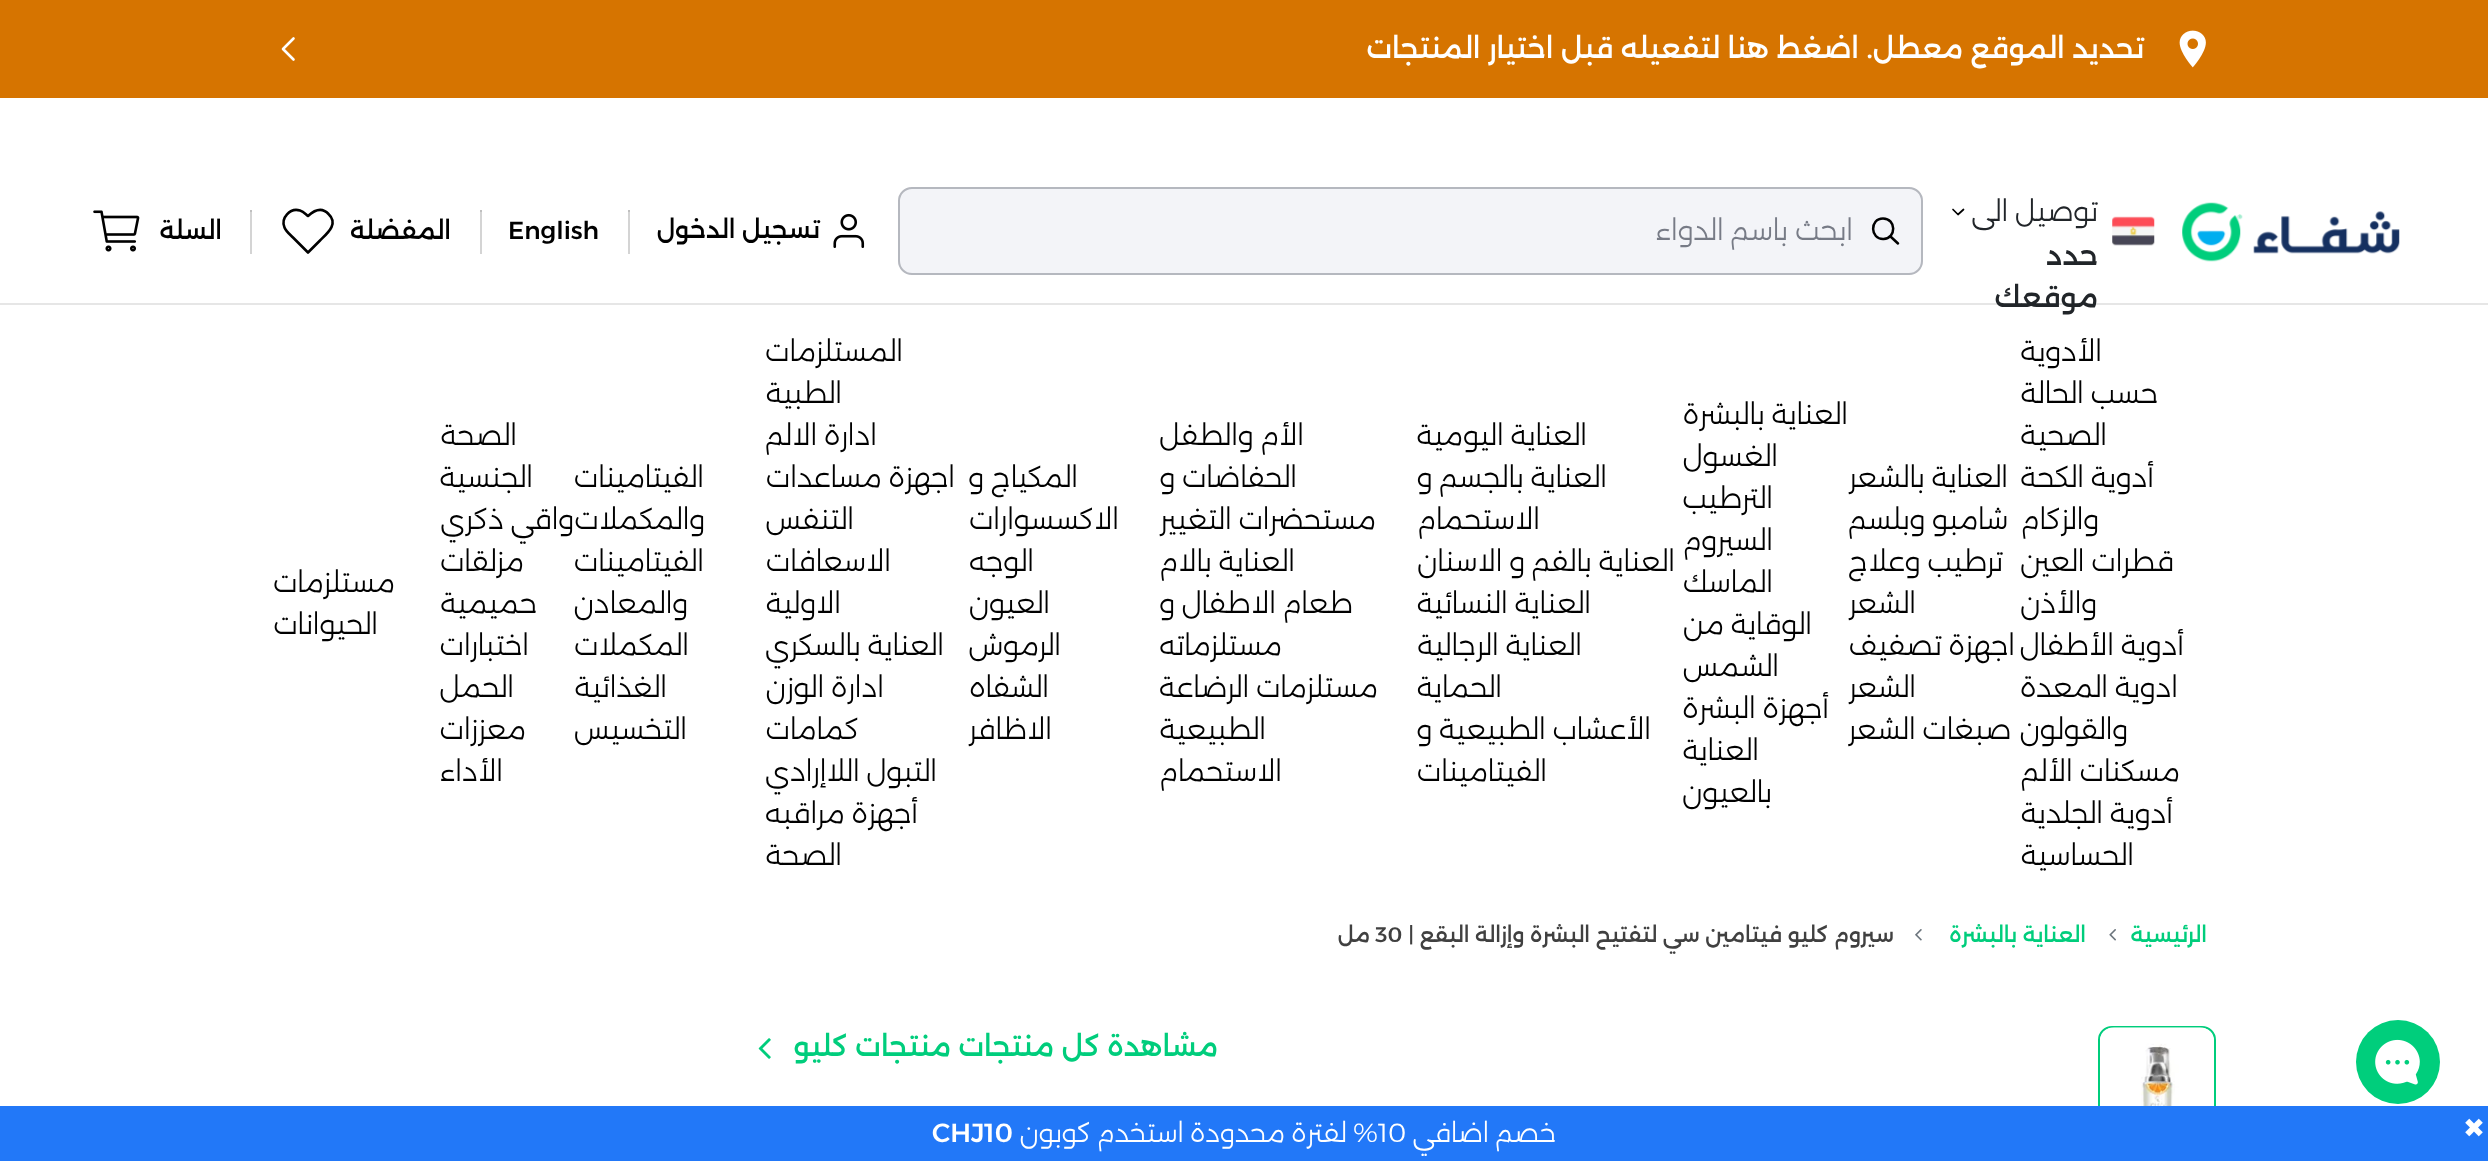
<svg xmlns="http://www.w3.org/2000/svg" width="2488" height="1161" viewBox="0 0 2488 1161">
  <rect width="100%" height="100%" fill="#ffffff"/>
  <path d="M0 303V305H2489V2H2488V303Z" fill="#e6e6e6"/>
  <rect x="0" y="0" width="2488" height="98" fill="#d67400"/>
  <image x="2179" y="30" width="27" height="38" href="img1.png"/>
  <text x="2144" y="58" font-family="Alexandria" font-size="28" font-weight="500" direction="rtl" fill="#ffffff">تحديد الموقع معطل. اضغط هنا لتفعيله قبل اختيار المنتجات</text>
  <path d="M293.5 59.5L283 49L293.5 38.5" fill="none" stroke="#ffffff" stroke-width="2.6" stroke-linecap="round" stroke-linejoin="round"/>
  <image x="2182" y="202" width="218" height="60" href="img2.png"/>
  <image x="2112" y="216" width="43" height="30" href="img3.png"/>
  <text x="2098" y="221" font-family="Alexandria" font-size="28" font-weight="300" direction="rtl" fill="#212529">توصيل الى</text>
  <path d="M1953 209.5L1958 214.5L1963.5 209.5" fill="none" stroke="#000000" stroke-width="1.7" stroke-linecap="round" stroke-linejoin="round"/>
  <text x="2098" y="265" font-family="Alexandria" font-size="28" font-weight="500" direction="rtl" fill="#212529">حدد</text>
  <text x="2098" y="307" font-family="Alexandria" font-size="28" font-weight="500" direction="rtl" fill="#212529">موقعك</text>
  <rect x="898" y="187" width="1025" height="88" rx="14" fill="#f3f4f8"/>
  <rect x="899" y="188" width="1023" height="86" rx="13" fill="none" stroke="#777b86" stroke-opacity="0.5" stroke-width="2"/>
  <path d="M1883 218.5C1869.5 218.5 1870 239.5 1883.5 239C1896.5 238.5 1896.5 218.5 1883 218.5Z" fill="none" stroke="#000000" stroke-width="2.5"/>
  <path d="M1890.5 236.5L1898 243.5" fill="none" stroke="#000000" stroke-width="2.5" stroke-linecap="round"/>
  <text x="1853" y="240" font-family="Alexandria" font-size="28" font-weight="300" direction="rtl" fill="#777b86">ابحث</text>
  <text x="1788" y="240" font-family="Alexandria" font-size="28" font-weight="300" direction="rtl" fill="#777b86">باسم الدواء</text>
  <image x="833" y="213" width="32" height="35" href="img4.png"/>
  <text x="820" y="238" font-family="Alexandria" font-size="24.5" font-weight="500" direction="rtl" fill="#000000">تسجيل الدخول</text>
  <rect x="628" y="210" width="2" height="44" fill="#d4d4d4"/>
  <rect x="628" y="210" width="2" height="2" fill="#bfbfbf"/>
  <text x="508" y="239" font-family="Alexandria" font-size="24.5" font-weight="500" fill="#000000">English</text>
  <rect x="480" y="210" width="2" height="44" fill="#d4d4d4"/>
  <rect x="480" y="210" width="2" height="2" fill="#bfbfbf"/>
  <text x="451" y="239" font-family="Alexandria" font-size="24.5" font-weight="500" direction="rtl" fill="#000000">المفضلة</text>
  <path d="M328.5 214C321.5 206.5 314 210.5 308 216C305.5 214 303.5 211.5 300 210.5C290 207.5 280.5 218 284.5 227.5C286 231.5 290 234.5 293 237.5L308 252.5L320 240.5C327 233.5 339 224 328.5 214Z" fill="none" stroke="#000000" stroke-width="2.6" stroke-linecap="round" stroke-linejoin="round"/>
  <rect x="250" y="210" width="2" height="44" fill="#d4d4d4"/>
  <rect x="250" y="210" width="2" height="2" fill="#bfbfbf"/>
  <text x="222" y="239" font-family="Alexandria" font-size="24.5" font-weight="500" direction="rtl" fill="#000000">السلة</text>
  <image x="93" y="210" width="47" height="42" href="img5.png"/>
  <text x="2102" y="361" font-family="Alexandria" font-size="28" font-weight="300" direction="rtl" fill="#000000">الأدوية</text>
  <text x="2158" y="403" font-family="Alexandria" font-size="28" font-weight="300" direction="rtl" fill="#000000">حسب الحالة</text>
  <text x="2107" y="445" font-family="Alexandria" font-size="28" font-weight="300" direction="rtl" fill="#000000">الصحية</text>
  <text x="2154" y="487" font-family="Alexandria" font-size="28" font-weight="300" direction="rtl" fill="#000000">أدوية الكحة</text>
  <text x="2099" y="529" font-family="Alexandria" font-size="28" font-weight="300" direction="rtl" fill="#000000">والزكام</text>
  <text x="2174" y="571" font-family="Alexandria" font-size="28" font-weight="300" direction="rtl" fill="#000000">قطرات العين</text>
  <text x="2097" y="613" font-family="Alexandria" font-size="28" font-weight="300" direction="rtl" fill="#000000">والأذن</text>
  <text x="2184" y="655" font-family="Alexandria" font-size="28" font-weight="300" direction="rtl" fill="#000000">أدوية الأطفال</text>
  <text x="2178" y="697" font-family="Alexandria" font-size="28" font-weight="300" direction="rtl" fill="#000000">ادوية المعدة</text>
  <text x="2128" y="739" font-family="Alexandria" font-size="28" font-weight="300" direction="rtl" fill="#000000">والقولون</text>
  <text x="2180" y="781" font-family="Alexandria" font-size="28" font-weight="300" direction="rtl" fill="#000000">مسكنات الألم</text>
  <text x="2173" y="823" font-family="Alexandria" font-size="28" font-weight="300" direction="rtl" fill="#000000">أدوية الجلدية</text>
  <text x="2134" y="865" font-family="Alexandria" font-size="28" font-weight="300" direction="rtl" fill="#000000">الحساسية</text>
  <text x="2008" y="487" font-family="Alexandria" font-size="28" font-weight="300" direction="rtl" fill="#000000">العناية بالشعر</text>
  <text x="2008" y="529" font-family="Alexandria" font-size="28" font-weight="300" direction="rtl" fill="#000000">شامبو وبلسم</text>
  <text x="2003" y="571" font-family="Alexandria" font-size="28" font-weight="300" direction="rtl" fill="#000000">ترطيب وعلاج</text>
  <text x="1916" y="613" font-family="Alexandria" font-size="28" font-weight="300" direction="rtl" fill="#000000">الشعر</text>
  <text x="2015" y="655" font-family="Alexandria" font-size="28" font-weight="300" direction="rtl" fill="#000000">اجهزة تصفيف</text>
  <text x="1916" y="697" font-family="Alexandria" font-size="28" font-weight="300" direction="rtl" fill="#000000">الشعر</text>
  <text x="2011" y="739" font-family="Alexandria" font-size="28" font-weight="300" direction="rtl" fill="#000000">صبغات الشعر</text>
  <text x="1848" y="424" font-family="Alexandria" font-size="28" font-weight="300" direction="rtl" fill="#000000">العناية بالبشرة</text>
  <text x="1778" y="466" font-family="Alexandria" font-size="28" font-weight="300" direction="rtl" fill="#000000">الغسول</text>
  <text x="1773" y="508" font-family="Alexandria" font-size="28" font-weight="300" direction="rtl" fill="#000000">الترطيب</text>
  <text x="1773" y="550" font-family="Alexandria" font-size="28" font-weight="300" direction="rtl" fill="#000000">السيروم</text>
  <text x="1773" y="592" font-family="Alexandria" font-size="28" font-weight="300" direction="rtl" fill="#000000">الماسك</text>
  <text x="1812" y="634" font-family="Alexandria" font-size="28" font-weight="300" direction="rtl" fill="#000000">الوقاية من</text>
  <text x="1779" y="676" font-family="Alexandria" font-size="28" font-weight="300" direction="rtl" fill="#000000">الشمس</text>
  <text x="1829" y="718" font-family="Alexandria" font-size="28" font-weight="300" direction="rtl" fill="#000000">أجهزة البشرة</text>
  <text x="1759" y="760" font-family="Alexandria" font-size="28" font-weight="300" direction="rtl" fill="#000000">العناية</text>
  <text x="1772" y="802" font-family="Alexandria" font-size="28" font-weight="300" direction="rtl" fill="#000000">بالعيون</text>
  <text x="1587" y="445" font-family="Alexandria" font-size="28" font-weight="300" direction="rtl" fill="#000000">العناية اليومية</text>
  <text x="1607" y="487" font-family="Alexandria" font-size="28" font-weight="300" direction="rtl" fill="#000000">العناية بالجسم و</text>
  <text x="1540" y="529" font-family="Alexandria" font-size="28" font-weight="300" direction="rtl" fill="#000000">الاستحمام</text>
  <text x="1675" y="571" font-family="Alexandria" font-size="28" font-weight="300" direction="rtl" fill="#000000">العناية بالفم و الاسنان</text>
  <text x="1591" y="613" font-family="Alexandria" font-size="28" font-weight="300" direction="rtl" fill="#000000">العناية النسائية</text>
  <text x="1582" y="655" font-family="Alexandria" font-size="28" font-weight="300" direction="rtl" fill="#000000">العناية الرجالية</text>
  <text x="1502" y="697" font-family="Alexandria" font-size="28" font-weight="300" direction="rtl" fill="#000000">الحماية</text>
  <text x="1651" y="739" font-family="Alexandria" font-size="28" font-weight="300" direction="rtl" fill="#000000">الأعشاب الطبيعية و</text>
  <text x="1547" y="781" font-family="Alexandria" font-size="28" font-weight="300" direction="rtl" fill="#000000">الفيتامينات</text>
  <text x="1304" y="445" font-family="Alexandria" font-size="28" font-weight="300" direction="rtl" fill="#000000">الأم والطفل</text>
  <text x="1297" y="487" font-family="Alexandria" font-size="28" font-weight="300" direction="rtl" fill="#000000">الحفاضات و</text>
  <text x="1376" y="529" font-family="Alexandria" font-size="28" font-weight="300" direction="rtl" fill="#000000">مستحضرات التغيير</text>
  <text x="1295" y="571" font-family="Alexandria" font-size="28" font-weight="300" direction="rtl" fill="#000000">العناية بالام</text>
  <text x="1353" y="613" font-family="Alexandria" font-size="28" font-weight="300" direction="rtl" fill="#000000">طعام الاطفال و</text>
  <text x="1282" y="655" font-family="Alexandria" font-size="28" font-weight="300" direction="rtl" fill="#000000">مستلزماته</text>
  <text x="1378" y="697" font-family="Alexandria" font-size="28" font-weight="300" direction="rtl" fill="#000000">مستلزمات الرضاعة</text>
  <text x="1266" y="739" font-family="Alexandria" font-size="28" font-weight="300" direction="rtl" fill="#000000">الطبيعية</text>
  <text x="1282" y="781" font-family="Alexandria" font-size="28" font-weight="300" direction="rtl" fill="#000000">الاستحمام</text>
  <text x="1078" y="487" font-family="Alexandria" font-size="28" font-weight="300" direction="rtl" fill="#000000">المكياج و</text>
  <text x="1119" y="529" font-family="Alexandria" font-size="28" font-weight="300" direction="rtl" fill="#000000">الاكسسوارات</text>
  <text x="1034" y="571" font-family="Alexandria" font-size="28" font-weight="300" direction="rtl" fill="#000000">الوجه</text>
  <text x="1050" y="613" font-family="Alexandria" font-size="28" font-weight="300" direction="rtl" fill="#000000">العيون</text>
  <text x="1061" y="655" font-family="Alexandria" font-size="28" font-weight="300" direction="rtl" fill="#000000">الرموش</text>
  <text x="1049" y="697" font-family="Alexandria" font-size="28" font-weight="300" direction="rtl" fill="#000000">الشفاه</text>
  <text x="1052" y="739" font-family="Alexandria" font-size="28" font-weight="300" direction="rtl" fill="#000000">الاظافر</text>
  <text x="903" y="361" font-family="Alexandria" font-size="28" font-weight="300" direction="rtl" fill="#000000">المستلزمات</text>
  <text x="842" y="403" font-family="Alexandria" font-size="28" font-weight="300" direction="rtl" fill="#000000">الطبية</text>
  <text x="877" y="445" font-family="Alexandria" font-size="28" font-weight="300" direction="rtl" fill="#000000">ادارة الالم</text>
  <text x="955" y="487" font-family="Alexandria" font-size="28" font-weight="300" direction="rtl" fill="#000000">اجهزة مساعدات</text>
  <text x="854" y="529" font-family="Alexandria" font-size="28" font-weight="300" direction="rtl" fill="#000000">التنفس</text>
  <text x="891" y="571" font-family="Alexandria" font-size="28" font-weight="300" direction="rtl" fill="#000000">الاسعافات</text>
  <text x="841" y="613" font-family="Alexandria" font-size="28" font-weight="300" direction="rtl" fill="#000000">الاولية</text>
  <text x="944" y="655" font-family="Alexandria" font-size="28" font-weight="300" direction="rtl" fill="#000000">العناية بالسكري</text>
  <text x="884" y="697" font-family="Alexandria" font-size="28" font-weight="300" direction="rtl" fill="#000000">ادارة الوزن</text>
  <text x="859" y="739" font-family="Alexandria" font-size="28" font-weight="300" direction="rtl" fill="#000000">كمامات</text>
  <text x="937" y="781" font-family="Alexandria" font-size="28" font-weight="300" direction="rtl" fill="#000000">التبول اللاإرادي</text>
  <text x="918" y="823" font-family="Alexandria" font-size="28" font-weight="300" direction="rtl" fill="#000000">أجهزة مراقبه</text>
  <text x="842" y="865" font-family="Alexandria" font-size="28" font-weight="300" direction="rtl" fill="#000000">الصحة</text>
  <text x="704" y="487" font-family="Alexandria" font-size="28" font-weight="300" direction="rtl" fill="#000000">الفيتامينات</text>
  <text x="705" y="529" font-family="Alexandria" font-size="28" font-weight="300" direction="rtl" fill="#000000">والمكملات</text>
  <text x="704" y="571" font-family="Alexandria" font-size="28" font-weight="300" direction="rtl" fill="#000000">الفيتامينات</text>
  <text x="688" y="613" font-family="Alexandria" font-size="28" font-weight="300" direction="rtl" fill="#000000">والمعادن</text>
  <text x="689" y="655" font-family="Alexandria" font-size="28" font-weight="300" direction="rtl" fill="#000000">المكملات</text>
  <text x="667" y="697" font-family="Alexandria" font-size="28" font-weight="300" direction="rtl" fill="#000000">الغذائية</text>
  <text x="687" y="739" font-family="Alexandria" font-size="28" font-weight="300" direction="rtl" fill="#000000">التخسيس</text>
  <text x="517" y="445" font-family="Alexandria" font-size="28" font-weight="300" direction="rtl" fill="#000000">الصحة</text>
  <text x="533" y="487" font-family="Alexandria" font-size="28" font-weight="300" direction="rtl" fill="#000000">الجنسية</text>
  <text x="574" y="529" font-family="Alexandria" font-size="28" font-weight="300" direction="rtl" fill="#000000">واقي ذكري</text>
  <text x="524" y="571" font-family="Alexandria" font-size="28" font-weight="300" direction="rtl" fill="#000000">مزلقات</text>
  <text x="537" y="613" font-family="Alexandria" font-size="28" font-weight="300" direction="rtl" fill="#000000">حميمية</text>
  <text x="529" y="655" font-family="Alexandria" font-size="28" font-weight="300" direction="rtl" fill="#000000">اختبارات</text>
  <text x="514" y="697" font-family="Alexandria" font-size="28" font-weight="300" direction="rtl" fill="#000000">الحمل</text>
  <text x="526" y="739" font-family="Alexandria" font-size="28" font-weight="300" direction="rtl" fill="#000000">معززات</text>
  <text x="503" y="781" font-family="Alexandria" font-size="28" font-weight="300" direction="rtl" fill="#000000">الأداء</text>
  <text x="395" y="592" font-family="Alexandria" font-size="28" font-weight="300" direction="rtl" fill="#000000">مستلزمات</text>
  <text x="378" y="634" font-family="Alexandria" font-size="28" font-weight="300" direction="rtl" fill="#000000">الحيوانات</text>
  <circle cx="2398" cy="1062" r="42" fill="#00ce7c"/>
  <image x="2375" y="1039" width="45" height="46" href="img6.png"/>
  <text x="2207" y="942" font-family="Alexandria" font-size="21" font-weight="500" direction="rtl" fill="#00cd7c">الرئيسية</text>
  <image x="2109" y="929" width="7" height="12" href="img7.png"/>
  <text x="2086" y="942" font-family="Alexandria" font-size="21" font-weight="500" direction="rtl" fill="#00cd7c">العناية بالبشرة</text>
  <image x="1915" y="929" width="7" height="12" href="img8.png"/>
  <text x="1894" y="942" font-family="Alexandria" font-size="21" font-weight="500" direction="rtl" fill="#404040">سيروم كليو فيتامين سي لتفتيح البشرة وإزالة البقع |</text>
  <text x="1375" y="942" font-family="Alexandria" font-size="21" font-weight="500" fill="#404040">30</text>
  <text x="1370" y="942" font-family="Alexandria" font-size="21" font-weight="500" direction="rtl" fill="#404040">مل</text>
  <rect x="2099" y="1027" width="116" height="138" rx="13" fill="none" stroke="#00cd7c" stroke-width="2"/>
  <image x="2100" y="1027" width="114" height="79" href="img9.png"/>
  <text x="1218" y="1056" font-family="Alexandria" font-size="28" font-weight="500" direction="rtl" fill="#00cd7c">مشاهدة كل منتجات</text>
  <text x="951" y="1056" font-family="Alexandria" font-size="28" font-weight="500" direction="rtl" fill="#00cd7c">منتجات كليو</text>
  <image x="758" y="1038" width="13" height="21" href="img10.png"/>
  <rect x="0" y="1106" width="2488" height="55" fill="#2278f8"/>
  <text x="2463" y="1137" font-family="DejaVu Sans" font-size="26.25" fill="#ffffff">✖</text>
  <text x="1556" y="1142" font-family="Alexandria" font-size="26.25" font-weight="300" direction="rtl" fill="#ffffff">خصم اضافي</text>
  <text x="1378" y="1142" font-family="Alexandria" font-size="26.25" font-weight="300" fill="#ffffff">10</text>
  <text x="1378" y="1142" font-family="Alexandria" font-size="26.25" font-weight="300" direction="rtl" fill="#ffffff">% لفترة محدودة استخدم كوبون</text>
  <text x="932" y="1142" font-family="Alexandria" font-size="26.25" font-weight="500" fill="#ffffff">CHJ10</text>
</svg>
